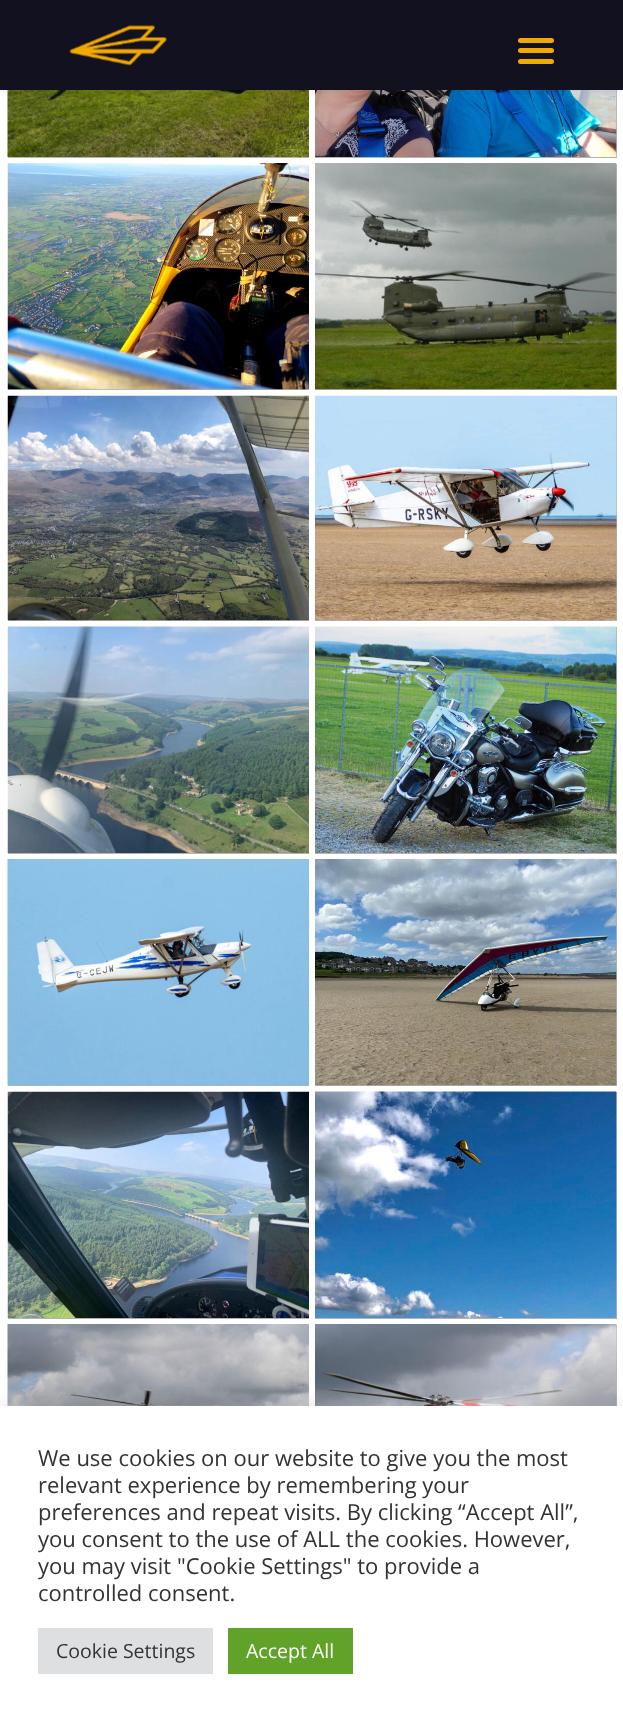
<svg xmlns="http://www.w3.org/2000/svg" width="623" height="1718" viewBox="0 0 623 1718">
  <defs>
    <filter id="blur1" x="-50%" y="-200%" width="200%" height="500%"><feGaussianBlur stdDeviation="5"/></filter>
    <filter id="blur2" x="-50%" y="-200%" width="200%" height="500%"><feGaussianBlur stdDeviation="7.5"/></filter>
  </defs>
  <rect width="100%" height="100%" fill="#ffffff"/>
  <image x="7" y="90" width="302" height="67" href="img2.png"/>
  <rect x="315" y="90" width="302" height="68" fill="#b3b3b3"/>
  <image x="315" y="90" width="302" height="67" href="img3.png"/>
  <rect x="0" y="0" width="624" height="90" fill="#000000" fill-opacity="0.1" filter="url(#blur1)"/>
  <rect x="0" y="0" width="623" height="90" fill="#11111f"/>
  <image x="69" y="25" width="98" height="41" href="img1.png"/>
  <rect x="518" y="48" width="36" height="5" rx="2.5" fill="#f2a900"/>
  <rect x="518" y="38" width="36" height="5" rx="2.5" fill="#f2a900"/>
  <rect x="518" y="59" width="36" height="5" rx="2.5" fill="#f2a900"/>
  <rect x="8" y="157" width="301" height="1" fill="#b3b3b3"/>
  <rect x="8" y="389" width="301" height="1" fill="#b3b3b3"/>
  <image x="7" y="163" width="302" height="227" href="img4.png"/>
  <rect x="315" y="164" width="302" height="226" fill="#b3b3b3"/>
  <image x="315" y="163" width="302" height="227" href="img5.png"/>
  <rect x="8" y="620" width="301" height="1" fill="#b3b3b3"/>
  <image x="7" y="395" width="302" height="226" href="img6.png"/>
  <rect x="315" y="396" width="302" height="225" fill="#b3b3b3"/>
  <image x="315" y="395" width="302" height="226" href="img7.png"/>
  <rect x="8" y="853" width="301" height="1" fill="#b3b3b3"/>
  <image x="7" y="626" width="302" height="227" href="img8.png"/>
  <rect x="315" y="627" width="302" height="227" fill="#b3b3b3"/>
  <image x="315" y="626" width="302" height="227" href="img9.png"/>
  <rect x="8" y="1085" width="301" height="1" fill="#b3b3b3"/>
  <image x="7" y="859" width="302" height="227" href="img10.png"/>
  <rect x="315" y="860" width="302" height="226" fill="#b3b3b3"/>
  <image x="315" y="859" width="302" height="227" href="img11.png"/>
  <rect x="8" y="1318" width="301" height="1" fill="#b3b3b3"/>
  <image x="7" y="1091" width="302" height="227" href="img12.png"/>
  <rect x="315" y="1092" width="302" height="227" fill="#b3b3b3"/>
  <image x="315" y="1091" width="302" height="227" href="img13.png"/>
  <image x="7" y="1324" width="302" height="82" href="img14.png"/>
  <rect x="616" y="1325" width="1" height="81" fill="#b3b3b3"/>
  <image x="315" y="1324" width="302" height="82" href="img15.png"/>
  <rect x="0" y="1404" width="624" height="314" fill="#acabab" fill-opacity="0.3" filter="url(#blur2)"/>
  <rect x="0" y="1406" width="623" height="312" fill="#ffffff"/>
  <text x="38" y="1466" font-family="Open Sans" font-size="22" fill="#333333">We use cookies on our website to give you the most</text>
  <text x="38" y="1493" font-family="Open Sans" font-size="22" fill="#333333">relevant experience by remembering your</text>
  <text x="38" y="1520" font-family="Open Sans" font-size="22" fill="#333333">preferences and repeat visits. By clicking “Accept All”,</text>
  <text x="38" y="1547" font-family="Open Sans" font-size="22" fill="#333333">you consent to the use of ALL the cookies. However,</text>
  <text x="38" y="1574" font-family="Open Sans" font-size="22" fill="#333333">you may visit "Cookie Settings" to provide a</text>
  <text x="38" y="1601" font-family="Open Sans" font-size="22" fill="#333333">controlled consent.</text>
  <rect x="38" y="1628" width="175" height="46" fill="#dedfe0"/>
  <text x="56" y="1658" font-family="Open Sans" font-size="19.5" fill="#333333">Cookie Settings</text>
  <rect x="228" y="1628" width="125" height="46" fill="#61a229"/>
  <text x="246" y="1658" font-family="Open Sans" font-size="19.5" fill="#ffffff">Accept All</text>
</svg>
